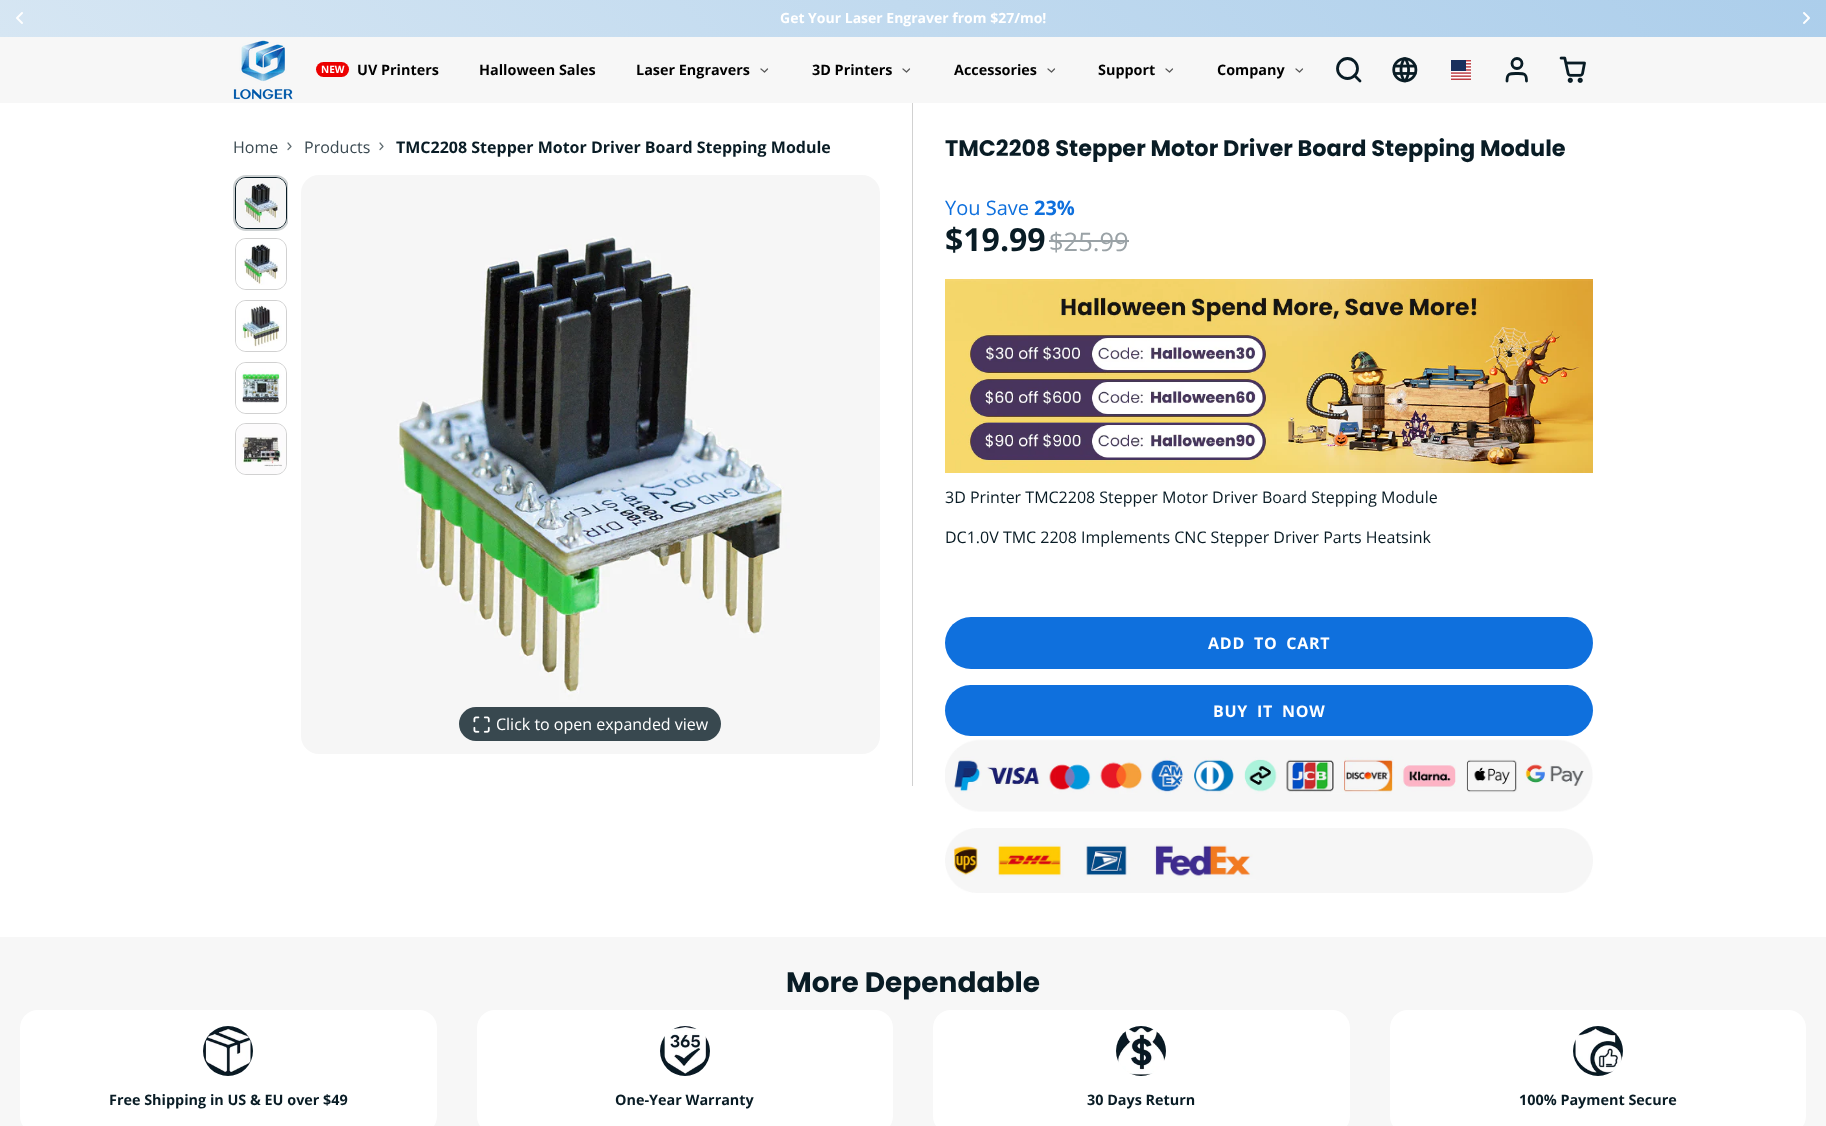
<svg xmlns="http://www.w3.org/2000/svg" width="1826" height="1126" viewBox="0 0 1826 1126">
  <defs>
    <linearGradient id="g1" gradientUnits="userSpaceOnUse" x1="1395" y1="-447" x2="431" y2="484"><stop offset="0" stop-color="#acceeb"/><stop offset="1" stop-color="#d6e6f3"/></linearGradient>
    <clipPath id="clip1"><rect x="233" y="175" width="55" height="579"/></clipPath>
  </defs>
  <rect width="100%" height="100%" fill="#f7f7f7"/>
  <rect x="0" y="0" width="1826" height="37" fill="url(#g1)"/>
  <image x="16" y="12" width="7" height="12" href="img1.png"/>
  <image x="1803" y="12" width="7" height="12" href="img2.png"/>
  <text x="780" y="23" font-family="Open Sans" font-size="14" font-weight="bold" fill="#ffffff">Get Your Laser Engraver from $27/mo!</text>
  <image x="233" y="40" width="60" height="60" href="img3.png"/>
  <rect x="316" y="62" width="33" height="15" rx="7.5" fill="#ec0000"/>
  <text x="321" y="73" font-family="Open Sans" font-size="10" font-weight="bold" fill="#ffffff">NEW</text>
  <text x="357" y="75" font-family="Open Sans" font-size="14.4" font-weight="bold" fill="#000000">UV Printers</text>
  <text x="479" y="75" font-family="Open Sans" font-size="14.4" font-weight="bold" fill="#000000">Halloween Sales</text>
  <text x="636" y="75" font-family="Open Sans" font-size="14.4" font-weight="bold" fill="#000000">Laser Engravers</text>
  <path d="M761 69L764.5 72L767.5 69" fill="none" stroke="#595959" stroke-width="1.2" stroke-linecap="round" stroke-linejoin="round"/>
  <text x="812" y="75" font-family="Open Sans" font-size="14.4" font-weight="bold" fill="#000000">3D Printers</text>
  <path d="M903 69L906.5 72L909.5 69" fill="none" stroke="#595959" stroke-width="1.2" stroke-linecap="round" stroke-linejoin="round"/>
  <text x="954" y="75" font-family="Open Sans" font-size="14.4" font-weight="bold" fill="#000000">Accessories</text>
  <path d="M1048 69L1051.5 72L1054.5 69" fill="none" stroke="#595959" stroke-width="1.2" stroke-linecap="round" stroke-linejoin="round"/>
  <text x="1098" y="75" font-family="Open Sans" font-size="14.4" font-weight="bold" fill="#000000">Support</text>
  <path d="M1166 69L1169.5 72L1172.5 69" fill="none" stroke="#595959" stroke-width="1.2" stroke-linecap="round" stroke-linejoin="round"/>
  <text x="1217" y="75" font-family="Open Sans" font-size="14.4" font-weight="bold" fill="#000000">Company</text>
  <path d="M1296 69L1299.5 72L1302.5 69" fill="none" stroke="#595959" stroke-width="1.2" stroke-linecap="round" stroke-linejoin="round"/>
  <circle cx="1347.5" cy="68.5" r="10" fill="none" stroke="#091c25" stroke-width="2.8"/>
  <path d="M1360 81L1354.5 75.5" fill="none" stroke="#091c25" stroke-width="2.8" stroke-linecap="round" stroke-linejoin="round"/>
  <image x="1392" y="57" width="26" height="26" href="img4.png"/>
  <image x="1451" y="60" width="20" height="20" href="img5.png"/>
  <path d="M1526.5 81C1526.5 73 1523.5 73.5 1517 73.5C1510 73.5 1507 73 1507 81" fill="none" stroke="#091c25" stroke-width="2.8" stroke-linecap="round" stroke-linejoin="round"/>
  <circle cx="1517" cy="63.5" r="5" fill="none" stroke="#091c25" stroke-width="2.8"/>
  <image x="1559" y="56" width="27" height="27" href="img6.png"/>
  <rect x="0" y="103" width="1826" height="834" fill="#ffffff"/>
  <rect x="912" y="103" width="1" height="683" fill="#d1d1d1"/>
  <text x="233" y="153" font-family="Open Sans" font-size="16" fill="#3a4951">Home</text>
  <path d="M288 149.5L291 146.5L288 143" fill="none" stroke="#626e73" stroke-width="1.2" stroke-linecap="round" stroke-linejoin="round"/>
  <text x="304" y="153" font-family="Open Sans" font-size="16" fill="#3a4951">Products</text>
  <path d="M380 149.5L383 146.5L380 143" fill="none" stroke="#626e73" stroke-width="1.2" stroke-linecap="round" stroke-linejoin="round"/>
  <text x="396" y="153" font-family="Open Sans" font-size="16" font-weight="bold" fill="#091c25">TMC2208 Stepper Motor Driver Board Stepping Module</text>
  <g clip-path="url(#clip1)">
    <rect x="234" y="176" width="54" height="54" rx="12" fill="none" stroke="#ced2d3" stroke-width="2"/>
  </g>
  <rect x="235.5" y="177.5" width="51" height="51" rx="10.5" fill="none" stroke="#091c25"/>
  <image x="236" y="178" width="50" height="50" href="img7.png"/>
  <rect x="235.5" y="238.5" width="51" height="51" rx="10.5" fill="none" stroke="#d1d1d1"/>
  <image x="236" y="239" width="50" height="50" href="img8.png"/>
  <rect x="235.5" y="300.5" width="51" height="51" rx="10.5" fill="none" stroke="#d1d1d1"/>
  <image x="236" y="301" width="50" height="50" href="img9.png"/>
  <rect x="235.5" y="362.5" width="51" height="51" rx="10.5" fill="none" stroke="#d1d1d1"/>
  <image x="236" y="363" width="50" height="50" href="img10.png"/>
  <rect x="235.5" y="423.5" width="51" height="51" rx="10.5" fill="none" stroke="#d1d1d1"/>
  <image x="236" y="424" width="50" height="50" href="img11.png"/>
  <image x="301" y="175" width="579" height="579" href="img12.png"/>
  <rect x="459" y="707" width="262" height="34" rx="17" fill="#38484f"/>
  <image x="473" y="716" width="17" height="17" href="img13.png"/>
  <text x="496" y="730" font-family="Open Sans" font-size="16" fill="#ffffff">Click to open expanded view</text>
  <text x="945" y="156" font-family="Poppins" font-size="22.4" font-weight="bold" fill="#091c25">TMC2208 Stepper Motor Driver Board Stepping Module</text>
  <text x="945" y="215" font-family="Open Sans" font-size="20" fill="#0f70dd">You Save</text>
  <text x="1034" y="215" font-family="Open Sans" font-size="20" font-weight="bold" fill="#0f70dd">23%</text>
  <text x="945" y="251" font-family="Open Sans" font-size="32" font-weight="bold" fill="#091c25">$19.99</text>
  <text x="1049" y="251" font-family="Open Sans" font-size="25.5" fill="#9aa2a6">$25.99</text>
  <rect x="1049" y="240" width="80" height="2" fill="#9aa2a6"/>
  <image x="945" y="279" width="648" height="194" href="img14.png"/>
  <text x="945" y="503" font-family="Open Sans" font-size="16" fill="#091c25">3D Printer TMC2208 Stepper Motor Driver Board Stepping Module</text>
  <text x="945" y="543" font-family="Open Sans" font-size="16" fill="#091c25">DC1.0V TMC 2208 Implements CNC Stepper Driver Parts Heatsink</text>
  <rect x="945" y="617" width="648" height="52" rx="26" fill="#0f70dd"/>
  <text x="1208" y="649" word-spacing="4" font-family="Open Sans" font-size="16" font-weight="bold" letter-spacing="0.75" fill="#ffffff">ADD TO CART</text>
  <rect x="945" y="685" width="648" height="51" rx="25.5" fill="#0f70dd"/>
  <text x="1213" y="717" word-spacing="4" font-family="Open Sans" font-size="16" font-weight="bold" letter-spacing="0.75" fill="#ffffff">BUY IT NOW</text>
  <image x="945" y="739" width="648" height="73" href="img15.png"/>
  <image x="945" y="828" width="648" height="65" href="img16.png"/>
  <text x="786" y="992" font-family="Poppins" font-size="28" font-weight="bold" fill="#091c25">More Dependable</text>
  <rect x="20" y="1010" width="417" height="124" rx="18" fill="#ffffff"/>
  <image x="203" y="1026" width="50" height="50" href="img17.png"/>
  <text x="109" y="1105" font-family="Open Sans" font-size="14.4" font-weight="bold" fill="#091c25">Free Shipping in US &amp; EU over $49</text>
  <rect x="477" y="1010" width="416" height="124" rx="18" fill="#ffffff"/>
  <image x="660" y="1026" width="50" height="50" href="img18.png"/>
  <text x="615" y="1105" font-family="Open Sans" font-size="14.4" font-weight="bold" fill="#091c25">One-Year Warranty</text>
  <rect x="933" y="1010" width="417" height="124" rx="18" fill="#ffffff"/>
  <image x="1116" y="1026" width="50" height="50" href="img19.png"/>
  <text x="1087" y="1105" font-family="Open Sans" font-size="14.4" font-weight="bold" fill="#091c25">30 Days Return</text>
  <rect x="1390" y="1010" width="416" height="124" rx="18" fill="#ffffff"/>
  <image x="1573" y="1026" width="50" height="50" href="img20.png"/>
  <text x="1519" y="1105" font-family="Open Sans" font-size="14.4" font-weight="bold" fill="#091c25">100% Payment Secure</text>
</svg>
